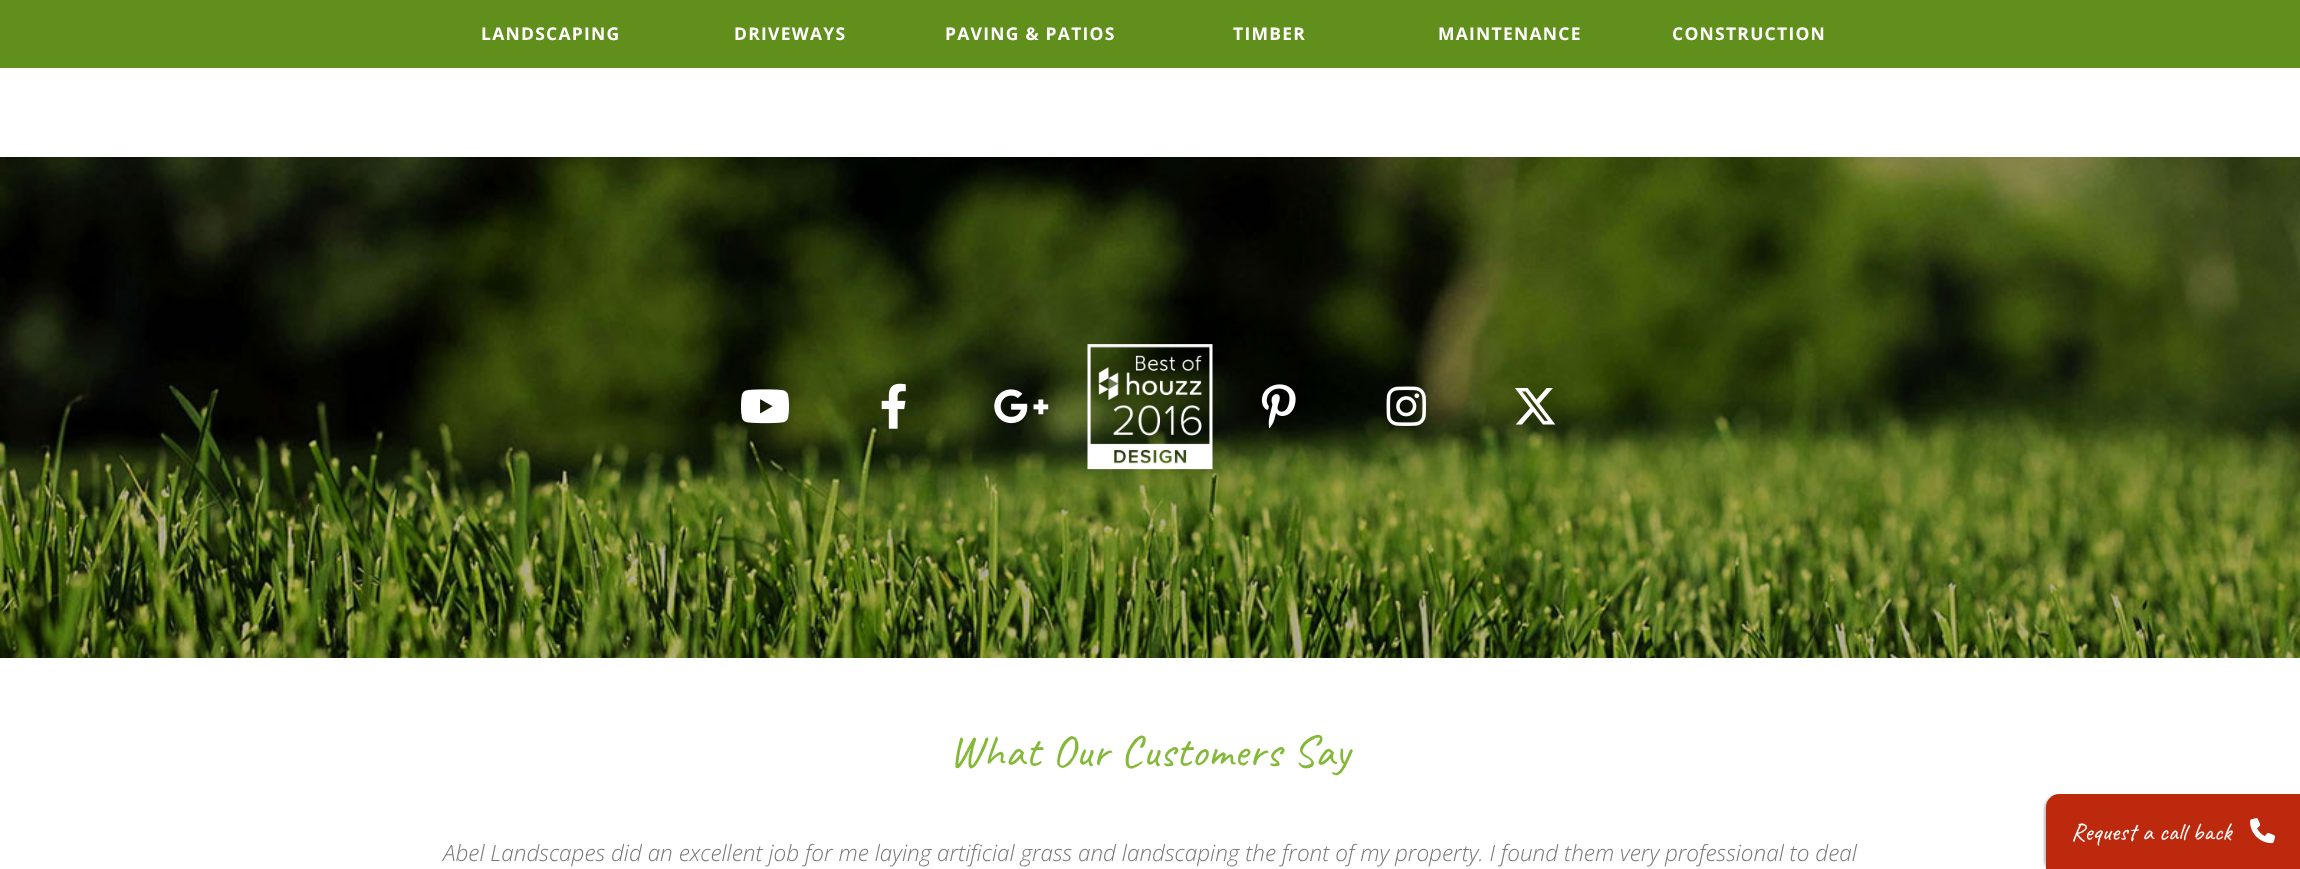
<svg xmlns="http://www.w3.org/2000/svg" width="2300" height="869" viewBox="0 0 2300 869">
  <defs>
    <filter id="blur1" x="-50%" y="-200%" width="200%" height="500%"><feGaussianBlur stdDeviation="1"/></filter>
  </defs>
  <rect width="100%" height="100%" fill="#ffffff"/>
  <rect x="0" y="0" width="2300" height="68" fill="#618f1b"/>
  <text x="481" y="40" font-family="Open Sans" font-size="17.5" font-weight="bold" letter-spacing="1.25" fill="#ffffff">LANDSCAPING</text>
  <text x="734" y="40" font-family="Open Sans" font-size="17.5" font-weight="bold" letter-spacing="1.25" fill="#ffffff">DRIVEWAYS</text>
  <text x="945" y="40" font-family="Open Sans" font-size="17.5" font-weight="bold" letter-spacing="1.25" fill="#ffffff">PAVING &amp; PATIOS</text>
  <text x="1233" y="40" font-family="Open Sans" font-size="17.5" font-weight="bold" letter-spacing="1.25" fill="#ffffff">TIMBER</text>
  <text x="1438" y="40" font-family="Open Sans" font-size="17.5" font-weight="bold" letter-spacing="1.25" fill="#ffffff">MAINTENANCE</text>
  <text x="1672" y="40" font-family="Open Sans" font-size="17.5" font-weight="bold" letter-spacing="1.25" fill="#ffffff">CONSTRUCTION</text>
  <image x="0" y="157" width="2300" height="501" href="img1.png"/>
  <image x="741" y="389" width="48" height="35" href="img2.png"/>
  <image x="881" y="383" width="25" height="46" href="img3.png"/>
  <image x="994" y="389" width="55" height="35" href="img4.png"/>
  <image x="1087" y="344" width="126" height="126" href="img5.png"/>
  <image x="1261" y="384" width="35" height="45" href="img6.png"/>
  <image x="1386" y="386" width="40" height="40" href="img7.png"/>
  <image x="1515" y="388" width="41" height="37" href="img8.png"/>
  <text x="949" y="766" font-family="Caveat" font-size="45" letter-spacing="0.6" fill="#83b936">What Our Customers Say</text>
  <text x="443" y="861" font-family="Open Sans" font-size="22.5" font-weight="300" font-style="italic" fill="#777777">Abel Landscapes did an excellent job for me laying artificial grass and landscaping the front of my property. I found them very professional to deal</text>
  <rect x="2044" y="796" width="254" height="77" rx="13" fill="#000000" fill-opacity="0.25" filter="url(#blur1)"/>
  <path d="M2059 794H2300V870H2046V807C2046 800 2052 794 2059 794Z" fill="#bd290d"/>
  <text x="2071" y="840" font-family="Caveat" font-size="25" fill="#ffffff">Request a call back</text>
  <image x="2250" y="818" width="25" height="26" href="img9.png"/>
</svg>
